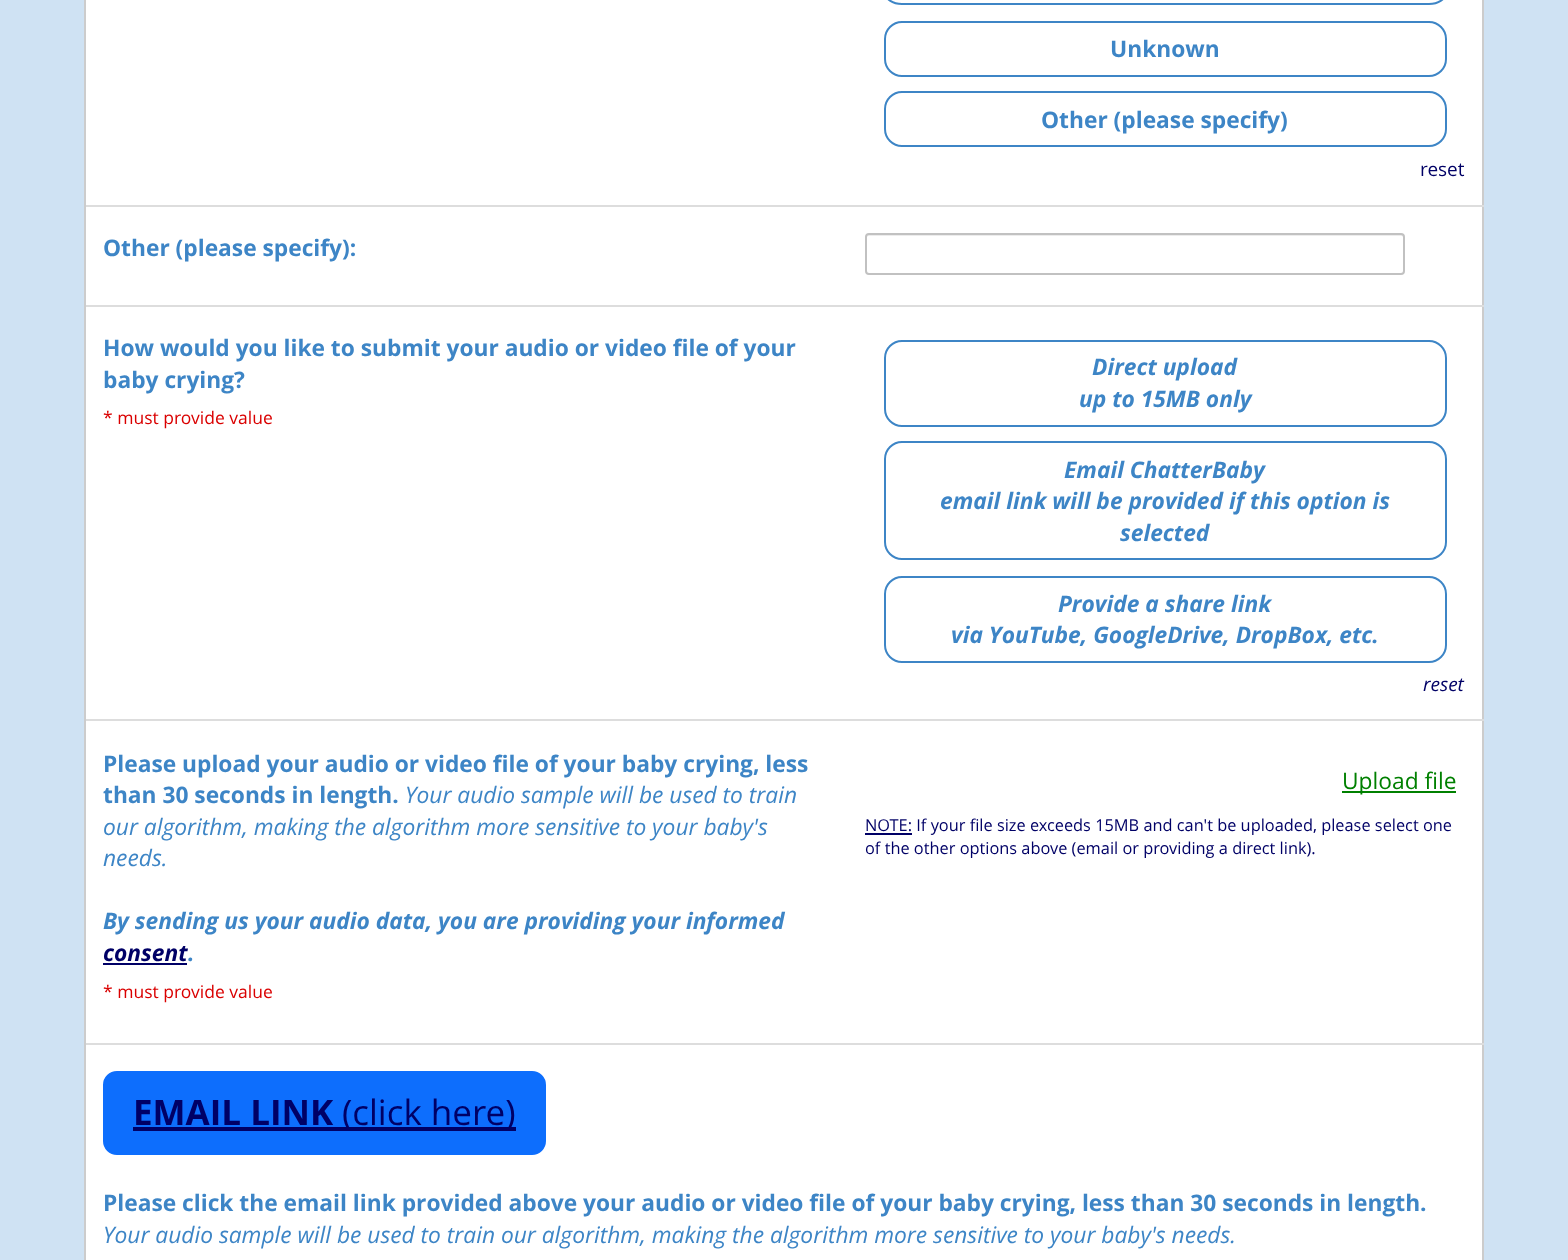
<svg xmlns="http://www.w3.org/2000/svg" width="1568" height="1260" viewBox="0 0 1568 1260">
  <rect width="100%" height="100%" fill="#cfe2f3"/>
  <rect x="86" y="0" width="1396" height="1260" fill="#ffffff"/>
  <rect x="1482" y="0" width="2" height="1260" fill="#cccccc"/>
  <rect x="84" y="0" width="2" height="1260" fill="#cccccc"/>
  <rect x="86" y="205" width="1398" height="2" fill="#dddddd"/>
  <rect x="885" y="-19" width="561" height="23" rx="17" fill="none" stroke="#3d85c6" stroke-width="2"/>
  <rect x="885" y="22" width="561" height="54" rx="17" fill="none" stroke="#3d85c6" stroke-width="2"/>
  <text x="1110" y="57" font-family="Open Sans" font-size="22.75" font-weight="bold" fill="#3d85c6">Unknown</text>
  <rect x="885" y="92" width="561" height="54" rx="17" fill="none" stroke="#3d85c6" stroke-width="2"/>
  <text x="1041" y="128" font-family="Open Sans" font-size="22.75" font-weight="bold" fill="#3d85c6">Other (please specify)</text>
  <text x="1420" y="176" font-family="Open Sans" font-size="19" fill="#000066">reset</text>
  <rect x="86" y="305" width="1398" height="2" fill="#dddddd"/>
  <path d="M868 236H1402C1403 236 1404 237 1404 238C1404 237 1404 235 1402 235H868L866 236V238C866 237 867 236 868 236Z" fill="#ececec"/>
  <rect x="866" y="234" width="538" height="40" rx="3" fill="none" stroke="#c1c1c1" stroke-width="2"/>
  <text x="103" y="256" font-family="Open Sans" font-size="22.75" font-weight="bold" fill="#3d85c6">Other (please specify):</text>
  <text x="103" y="356" font-family="Open Sans" font-size="22.75" font-weight="bold" fill="#3d85c6">How would you like to submit your audio or video file of your</text>
  <text x="103" y="388" font-family="Open Sans" font-size="22.75" font-weight="bold" fill="#3d85c6">baby crying?</text>
  <text x="103" y="424" font-family="Open Sans" font-size="17.5" fill="#da0000">* must provide value</text>
  <rect x="86" y="719" width="1398" height="2" fill="#dddddd"/>
  <rect x="885" y="341" width="561" height="85" rx="17" fill="none" stroke="#3d85c6" stroke-width="2"/>
  <text x="1092" y="375" font-family="Open Sans" font-size="22.75" font-weight="bold" font-style="italic" fill="#3d85c6">Direct upload</text>
  <text x="1079" y="407" font-family="Open Sans" font-size="22.75" font-weight="bold" font-style="italic" fill="#3d85c6">up to 15MB only</text>
  <rect x="885" y="442" width="561" height="117" rx="17" fill="none" stroke="#3d85c6" stroke-width="2"/>
  <text x="1064" y="478" font-family="Open Sans" font-size="22.75" font-weight="bold" font-style="italic" fill="#3d85c6">Email ChatterBaby</text>
  <text x="940" y="509" font-family="Open Sans" font-size="22.75" font-weight="bold" font-style="italic" fill="#3d85c6">email link will be provided if this option is</text>
  <text x="1120" y="541" font-family="Open Sans" font-size="22.75" font-weight="bold" font-style="italic" fill="#3d85c6">selected</text>
  <rect x="885" y="577" width="561" height="85" rx="17" fill="none" stroke="#3d85c6" stroke-width="2"/>
  <text x="1058" y="612" font-family="Open Sans" font-size="22.75" font-weight="bold" font-style="italic" fill="#3d85c6">Provide a share link</text>
  <text x="951" y="643" font-family="Open Sans" font-size="22.75" font-weight="bold" font-style="italic" fill="#3d85c6">via YouTube, GoogleDrive, DropBox, etc.</text>
  <text x="1423" y="691" font-family="Open Sans" font-size="19" font-style="italic" fill="#000066">reset</text>
  <text x="103" y="772" font-family="Open Sans" font-size="22.75" font-weight="bold" fill="#3d85c6">Please upload your audio or video file of your baby crying, less</text>
  <text x="103" y="803" font-family="Open Sans" font-size="22.75" font-weight="bold" fill="#3d85c6">than 30 seconds in length.</text>
  <text x="405" y="803" font-family="Open Sans" font-size="22.75" font-style="italic" fill="#3d85c6">Your audio sample will be used to train</text>
  <text x="103" y="835" font-family="Open Sans" font-size="22.75" font-style="italic" fill="#3d85c6">our algorithm, making the algorithm more sensitive to your baby's</text>
  <text x="103" y="866" font-family="Open Sans" font-size="22.75" font-style="italic" fill="#3d85c6">needs.</text>
  <text x="103" y="929" font-family="Open Sans" font-size="22.75" font-weight="bold" font-style="italic" fill="#3d85c6">By sending us your audio data, you are providing your informed</text>
  <text x="103" y="961" font-family="Open Sans" font-size="22.75" font-weight="bold" font-style="italic" fill="#000066">consent</text>
  <text x="188" y="961" font-family="Open Sans" font-size="22.75" font-weight="bold" font-style="italic" fill="#3d85c6">.</text>
  <rect x="103" y="963" width="84" height="2" fill="#000066"/>
  <text x="103" y="998" font-family="Open Sans" font-size="17.5" fill="#da0000">* must provide value</text>
  <rect x="86" y="1043" width="1398" height="2" fill="#dddddd"/>
  <rect x="1342" y="791" width="114" height="2" fill="#008000"/>
  <text x="1342" y="789" font-family="Open Sans" font-size="22.75" fill="#008000">Upload file</text>
  <rect x="865" y="833" width="47" height="2" fill="#000066"/>
  <text x="865" y="831" font-family="Open Sans" font-size="16.35" fill="#000066">NOTE: If your file size exceeds 15MB and can't be uploaded, please select one</text>
  <text x="865" y="854" font-family="Open Sans" font-size="16.35" fill="#000066">of the other options above (email or providing a direct link).</text>
  <rect x="104" y="1072" width="441" height="82" rx="13" fill="#0d6efd" stroke="#0d6efd" stroke-width="2"/>
  <text x="133" y="1125" font-family="Open Sans" font-size="35" font-weight="bold" fill="#000066">EMAIL LINK</text>
  <rect x="133" y="1127" width="383" height="4" fill="#000066"/>
  <text x="342" y="1125" font-family="Open Sans" font-size="35" fill="#000066">(click here)</text>
  <text x="103" y="1211" font-family="Open Sans" font-size="22.75" font-weight="bold" fill="#3d85c6">Please click the email link provided above your audio or video file of your baby crying, less than 30 seconds in length.</text>
  <text x="103" y="1243" font-family="Open Sans" font-size="22.75" font-style="italic" fill="#3d85c6">Your audio sample will be used to train our algorithm, making the algorithm more sensitive to your baby's needs.</text>
</svg>
